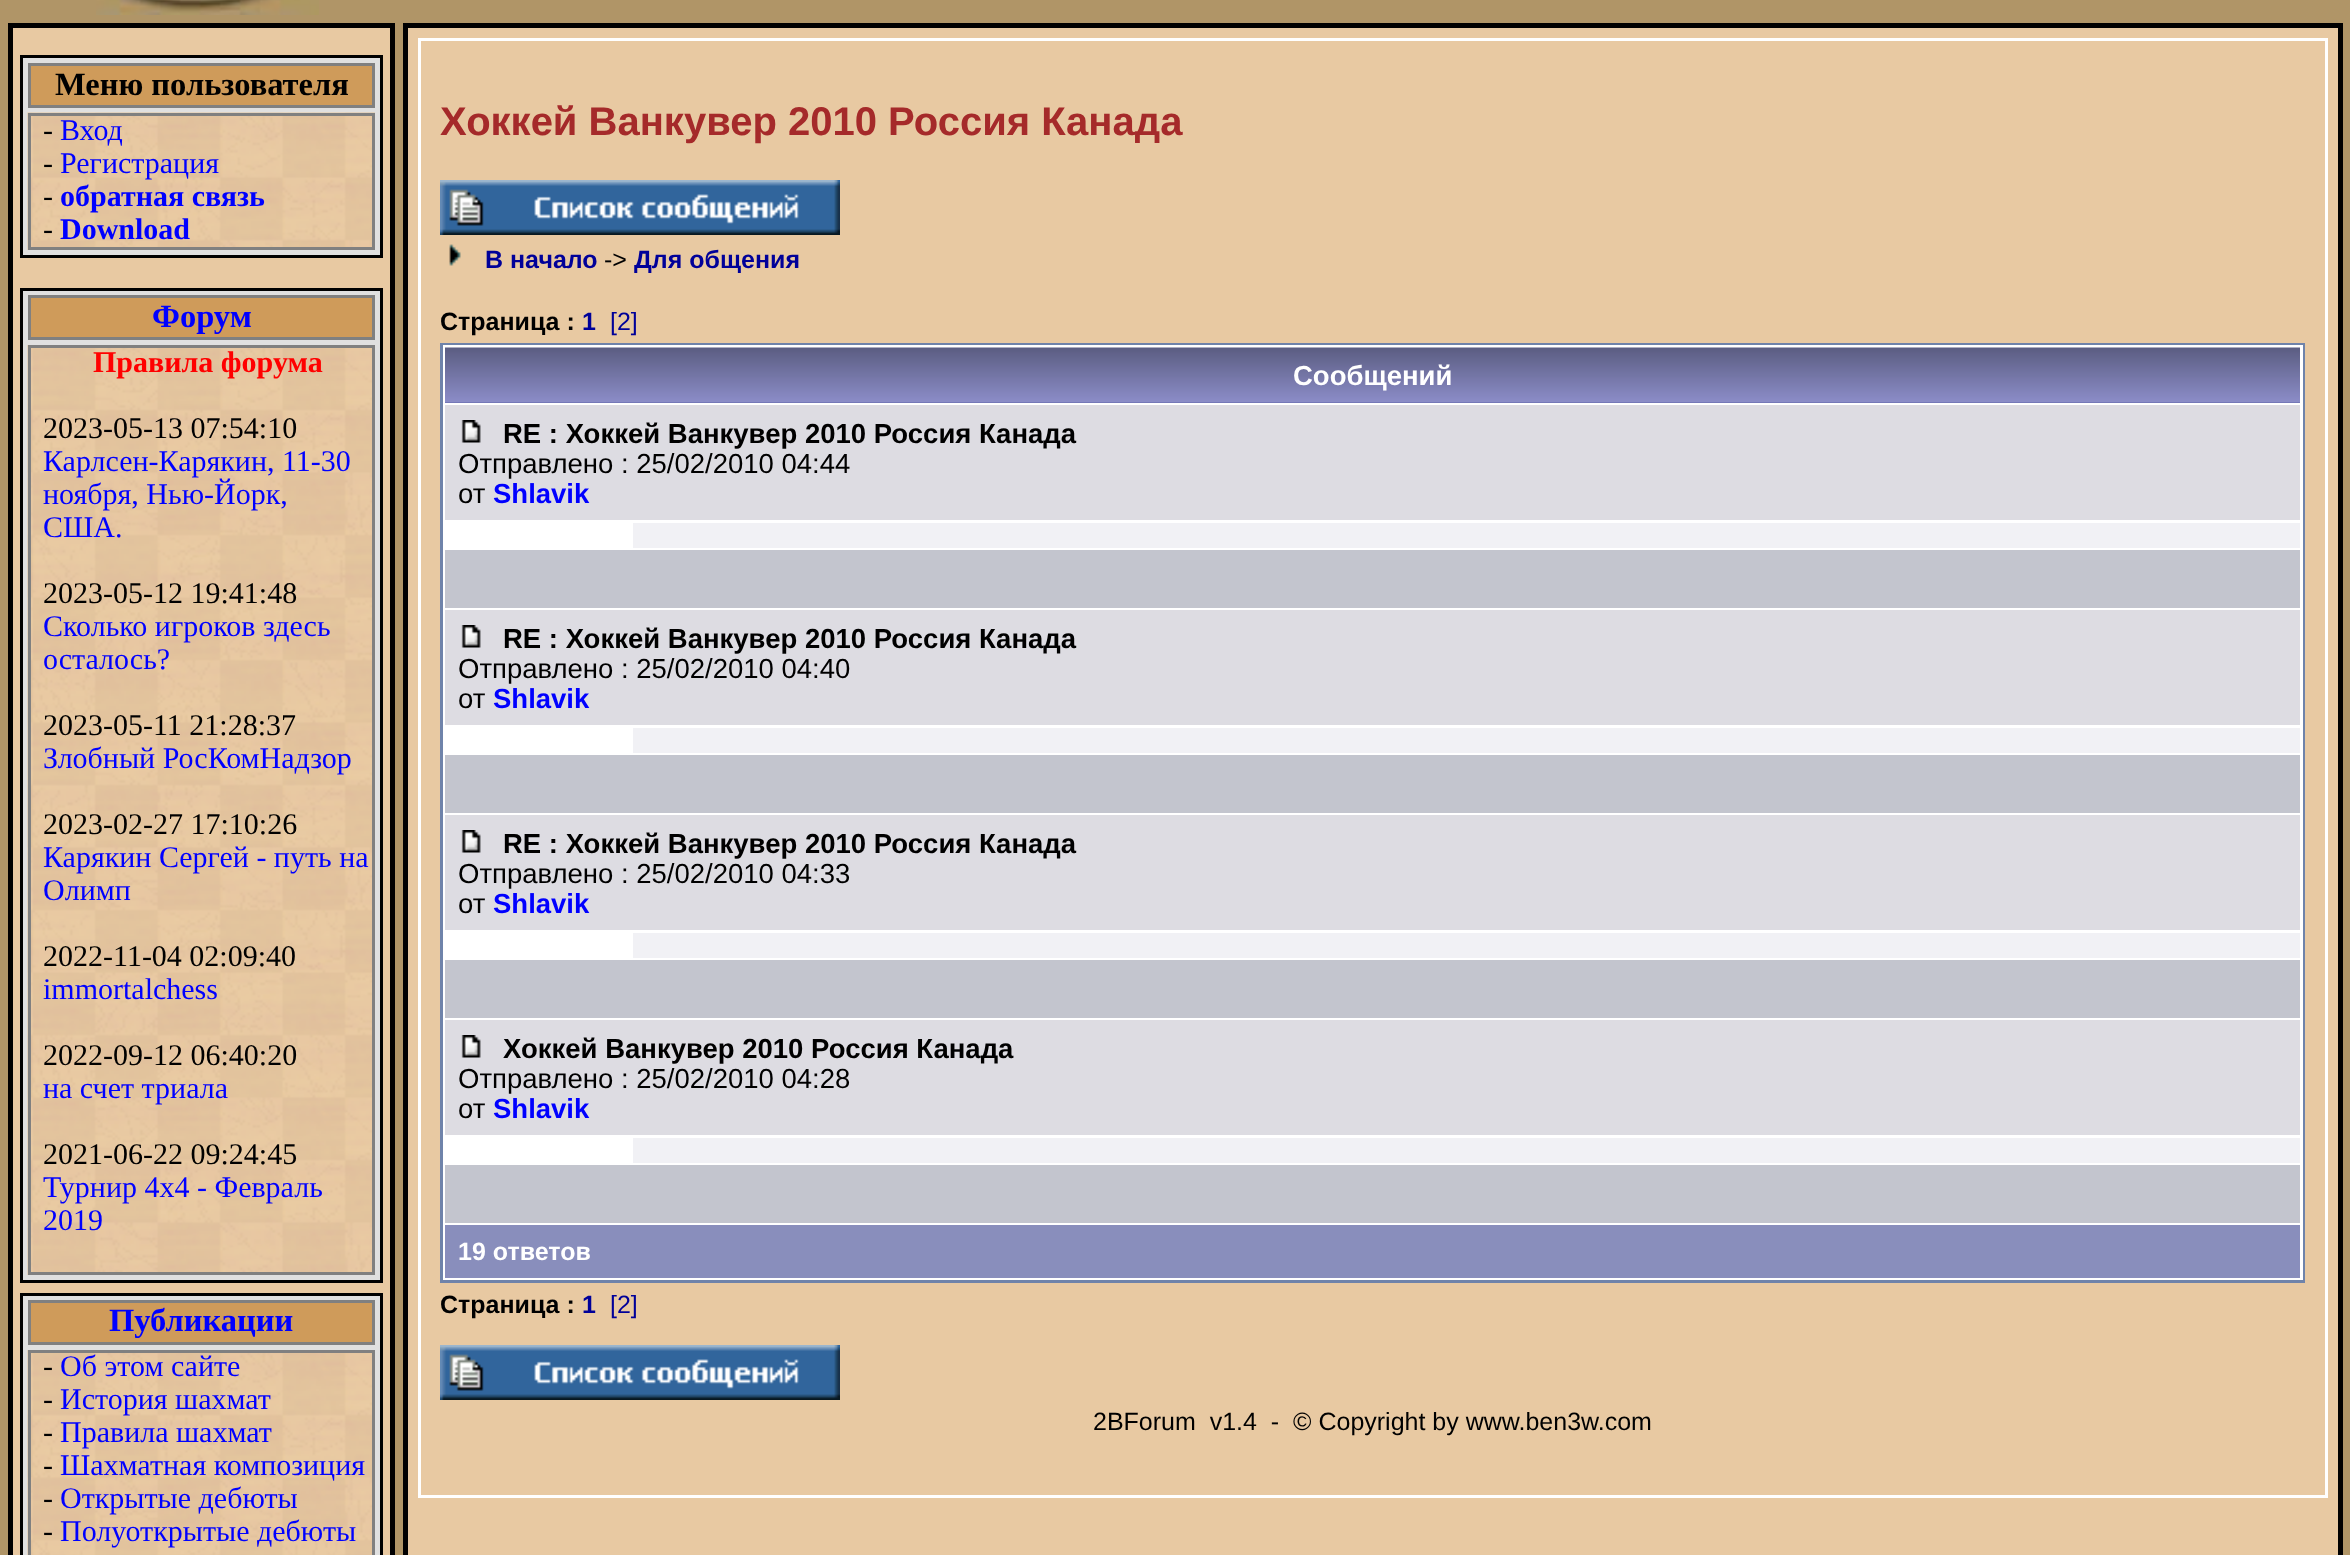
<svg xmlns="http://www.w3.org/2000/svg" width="2350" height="1555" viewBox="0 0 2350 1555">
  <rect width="100%" height="100%" fill="#b09567"/>
  <image x="96" y="0" width="223" height="15" href="img1.png"/>
  <rect x="10.5" y="25.5" width="382" height="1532" fill="#e8c9a2" stroke="#000000" stroke-width="5"/>
  <rect x="21.5" y="56.5" width="360" height="200" fill="#e0e0e0" stroke="#000000" stroke-width="3"/>
  <rect x="29.5" y="64.5" width="344" height="42" fill="#cf9b5a" stroke="#808080" stroke-width="3"/>
  <text x="55" y="95" font-family="Liberation Serif" font-size="32.5" font-weight="bold" fill="#000000">Меню пользователя</text>
  <image x="27" y="112" width="348" height="138" href="img2.png"/>
  <rect x="29.5" y="114.5" width="344" height="134" fill="none" stroke="#808080" stroke-width="3"/>
  <text x="43" y="140" font-family="Liberation Serif" font-size="30" fill="#000000">-</text>
  <text x="60" y="140" font-family="Liberation Serif" font-size="30" fill="#0000ff">Вход</text>
  <text x="43" y="173" font-family="Liberation Serif" font-size="30" fill="#000000">-</text>
  <text x="60" y="173" font-family="Liberation Serif" font-size="30" fill="#0000ff">Регистрация</text>
  <text x="43" y="206" font-family="Liberation Serif" font-size="30" fill="#000000">-</text>
  <text x="60" y="206" font-family="Liberation Serif" font-size="30" font-weight="bold" fill="#0000ff">обратная связь</text>
  <text x="43" y="239" font-family="Liberation Serif" font-size="30" fill="#000000">-</text>
  <text x="60" y="239" font-family="Liberation Serif" font-size="30" font-weight="bold" fill="#0000ff">Download</text>
  <rect x="21.5" y="289.5" width="360" height="992" fill="#e0e0e0" stroke="#000000" stroke-width="3"/>
  <rect x="29.5" y="296.5" width="344" height="42" fill="#cf9b5a" stroke="#808080" stroke-width="3"/>
  <text x="152" y="327" font-family="Liberation Serif" font-size="32.5" font-weight="bold" fill="#0000ff">Форум</text>
  <image x="27" y="345" width="345" height="930" href="img3.png"/>
  <rect x="29.5" y="346.5" width="344" height="927" fill="none" stroke="#808080" stroke-width="3"/>
  <text x="93" y="372" font-family="Liberation Serif" font-size="30" font-weight="bold" fill="#ff0000">Правила форума</text>
  <text x="43" y="438" font-family="Liberation Serif" font-size="30" fill="#000000">2023-05-13 07:54:10</text>
  <text x="43" y="471" font-family="Liberation Serif" font-size="30" fill="#0000ff">Карлсен-Карякин, 11-30</text>
  <text x="43" y="504" font-family="Liberation Serif" font-size="30" fill="#0000ff">ноября, Нью-Йорк,</text>
  <text x="43" y="537" font-family="Liberation Serif" font-size="30" fill="#0000ff">США.</text>
  <text x="43" y="603" font-family="Liberation Serif" font-size="30" fill="#000000">2023-05-12 19:41:48</text>
  <text x="43" y="636" font-family="Liberation Serif" font-size="30" fill="#0000ff">Сколько игроков здесь</text>
  <text x="43" y="669" font-family="Liberation Serif" font-size="30" fill="#0000ff">осталось?</text>
  <text x="43" y="735" font-family="Liberation Serif" font-size="30" fill="#000000">2023-05-11 21:28:37</text>
  <text x="43" y="768" font-family="Liberation Serif" font-size="30" fill="#0000ff">Злобный РосКомНадзор</text>
  <text x="43" y="834" font-family="Liberation Serif" font-size="30" fill="#000000">2023-02-27 17:10:26</text>
  <text x="43" y="867" font-family="Liberation Serif" font-size="30" fill="#0000ff">Карякин Сергей - путь на</text>
  <text x="43" y="900" font-family="Liberation Serif" font-size="30" fill="#0000ff">Олимп</text>
  <text x="43" y="966" font-family="Liberation Serif" font-size="30" fill="#000000">2022-11-04 02:09:40</text>
  <text x="43" y="999" font-family="Liberation Serif" font-size="30" fill="#0000ff">immortalchess</text>
  <text x="43" y="1065" font-family="Liberation Serif" font-size="30" fill="#000000">2022-09-12 06:40:20</text>
  <text x="43" y="1098" font-family="Liberation Serif" font-size="30" fill="#0000ff">на счет триала</text>
  <text x="43" y="1164" font-family="Liberation Serif" font-size="30" fill="#000000">2021-06-22 09:24:45</text>
  <text x="43" y="1197" font-family="Liberation Serif" font-size="30" fill="#0000ff">Турнир 4х4 - Февраль</text>
  <text x="43" y="1230" font-family="Liberation Serif" font-size="30" fill="#0000ff">2019</text>
  <rect x="21.5" y="1294.5" width="360" height="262" fill="#e0e0e0" stroke="#000000" stroke-width="3"/>
  <rect x="29.5" y="1301.5" width="344" height="42" fill="#cf9b5a" stroke="#808080" stroke-width="3"/>
  <text x="109" y="1331" font-family="Liberation Serif" font-size="32.5" font-weight="bold" fill="#0000ff">Публикации</text>
  <image x="27" y="1350" width="345" height="205" href="img4.png"/>
  <rect x="29.5" y="1351.5" width="344" height="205" fill="none" stroke="#808080" stroke-width="3"/>
  <text x="43" y="1376" font-family="Liberation Serif" font-size="30" fill="#000000">-</text>
  <text x="60" y="1376" font-family="Liberation Serif" font-size="30" fill="#0000ff">Об этом сайте</text>
  <text x="43" y="1409" font-family="Liberation Serif" font-size="30" fill="#000000">-</text>
  <text x="60" y="1409" font-family="Liberation Serif" font-size="30" fill="#0000ff">История шахмат</text>
  <text x="43" y="1442" font-family="Liberation Serif" font-size="30" fill="#000000">-</text>
  <text x="60" y="1442" font-family="Liberation Serif" font-size="30" fill="#0000ff">Правила шахмат</text>
  <text x="43" y="1475" font-family="Liberation Serif" font-size="30" fill="#000000">-</text>
  <text x="60" y="1475" font-family="Liberation Serif" font-size="30" fill="#0000ff">Шахматная композиция</text>
  <text x="43" y="1508" font-family="Liberation Serif" font-size="30" fill="#000000">-</text>
  <text x="60" y="1508" font-family="Liberation Serif" font-size="30" fill="#0000ff">Открытые дебюты</text>
  <text x="43" y="1541" font-family="Liberation Serif" font-size="30" fill="#000000">-</text>
  <text x="60" y="1541" font-family="Liberation Serif" font-size="30" fill="#0000ff">Полуоткрытые дебюты</text>
  <rect x="405.5" y="25.5" width="1935" height="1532" fill="#e8c9a2" stroke="#000000" stroke-width="5"/>
  <rect x="419.5" y="39.5" width="1907" height="1457" fill="none" stroke="#ffffff" stroke-width="3"/>
  <text x="440" y="135" font-family="Liberation Sans" font-size="40" font-weight="bold" fill="#a52a2a">Хоккей Ванкувер 2010 Россия Канада</text>
  <image x="440" y="180" width="400" height="55" href="img5.png"/>
  <image x="449" y="244" width="12" height="22" href="img6.png"/>
  <text x="485" y="268" font-family="Liberation Sans" font-size="25" font-weight="bold" fill="#000099">В начало</text>
  <text x="604" y="268" font-family="Liberation Sans" font-size="25" fill="#000000">-&gt;</text>
  <text x="634" y="268" font-family="Liberation Sans" font-size="25" font-weight="bold" fill="#000099">Для общения</text>
  <text x="440" y="330" font-family="Liberation Sans" font-size="25" font-weight="bold" fill="#000000">Страница :</text>
  <text x="582" y="330" font-family="Liberation Sans" font-size="25" font-weight="bold" fill="#000099">1</text>
  <text x="610" y="330" font-family="Liberation Sans" font-size="25" fill="#000099">[2]</text>
  <rect x="440" y="343" width="1865" height="940" fill="#6f83aa"/>
  <rect x="443" y="345" width="1860" height="935" fill="#ffffff"/>
  <rect x="445" y="402" width="1855" height="1" fill="#5c63a6"/>
  <image x="445" y="347" width="1855" height="56" href="img7.png"/>
  <text x="1293" y="385" font-family="Liberation Sans" font-size="27.5" font-weight="bold" fill="#ffffff">Сообщений</text>
  <rect x="445" y="405" width="1855" height="115" fill="#dddce2"/>
  <image x="461" y="420" width="20" height="23" href="img8.png"/>
  <text x="503" y="443" font-family="Liberation Sans" font-size="27.5" font-weight="bold" fill="#000000">RE : Хоккей Ванкувер 2010 Россия Канада</text>
  <text x="458" y="473" font-family="Liberation Sans" font-size="27.5" fill="#000000">Отправлено : 25/02/2010 04:44</text>
  <text x="458" y="503" font-family="Liberation Sans" font-size="27.5" fill="#000000">от</text>
  <text x="493" y="503" font-family="Liberation Sans" font-size="27.5" font-weight="bold" fill="#0000ff">Shlavik</text>
  <rect x="633" y="523" width="1667" height="25" fill="#f1f1f5"/>
  <rect x="445" y="550" width="1855" height="58" fill="#c3c5ce"/>
  <rect x="445" y="610" width="1855" height="115" fill="#dddce2"/>
  <image x="461" y="625" width="20" height="23" href="img8.png"/>
  <text x="503" y="648" font-family="Liberation Sans" font-size="27.5" font-weight="bold" fill="#000000">RE : Хоккей Ванкувер 2010 Россия Канада</text>
  <text x="458" y="678" font-family="Liberation Sans" font-size="27.5" fill="#000000">Отправлено : 25/02/2010 04:40</text>
  <text x="458" y="708" font-family="Liberation Sans" font-size="27.5" fill="#000000">от</text>
  <text x="493" y="708" font-family="Liberation Sans" font-size="27.5" font-weight="bold" fill="#0000ff">Shlavik</text>
  <rect x="633" y="728" width="1667" height="25" fill="#f1f1f5"/>
  <rect x="445" y="755" width="1855" height="58" fill="#c3c5ce"/>
  <rect x="445" y="815" width="1855" height="115" fill="#dddce2"/>
  <image x="461" y="830" width="20" height="23" href="img8.png"/>
  <text x="503" y="853" font-family="Liberation Sans" font-size="27.5" font-weight="bold" fill="#000000">RE : Хоккей Ванкувер 2010 Россия Канада</text>
  <text x="458" y="883" font-family="Liberation Sans" font-size="27.5" fill="#000000">Отправлено : 25/02/2010 04:33</text>
  <text x="458" y="913" font-family="Liberation Sans" font-size="27.5" fill="#000000">от</text>
  <text x="493" y="913" font-family="Liberation Sans" font-size="27.5" font-weight="bold" fill="#0000ff">Shlavik</text>
  <rect x="633" y="933" width="1667" height="25" fill="#f1f1f5"/>
  <rect x="445" y="960" width="1855" height="58" fill="#c3c5ce"/>
  <rect x="445" y="1020" width="1855" height="115" fill="#dddce2"/>
  <image x="461" y="1035" width="20" height="23" href="img8.png"/>
  <text x="503" y="1058" font-family="Liberation Sans" font-size="27.5" font-weight="bold" fill="#000000">Хоккей Ванкувер 2010 Россия Канада</text>
  <text x="458" y="1088" font-family="Liberation Sans" font-size="27.5" fill="#000000">Отправлено : 25/02/2010 04:28</text>
  <text x="458" y="1118" font-family="Liberation Sans" font-size="27.5" fill="#000000">от</text>
  <text x="493" y="1118" font-family="Liberation Sans" font-size="27.5" font-weight="bold" fill="#0000ff">Shlavik</text>
  <rect x="633" y="1138" width="1667" height="25" fill="#f1f1f5"/>
  <rect x="445" y="1165" width="1855" height="58" fill="#c3c5ce"/>
  <rect x="445" y="1225" width="1855" height="53" fill="#898ebc"/>
  <text x="458" y="1260" font-family="Liberation Sans" font-size="25" font-weight="bold" fill="#ffffff">19 ответов</text>
  <text x="440" y="1313" font-family="Liberation Sans" font-size="25" font-weight="bold" fill="#000000">Страница :</text>
  <text x="582" y="1313" font-family="Liberation Sans" font-size="25" font-weight="bold" fill="#000099">1</text>
  <text x="610" y="1313" font-family="Liberation Sans" font-size="25" fill="#000099">[2]</text>
  <image x="440" y="1345" width="400" height="55" href="img9.png"/>
  <text x="1093" y="1430" font-family="Liberation Sans" font-size="25" fill="#000000" xml:space="preserve">2BForum  v1.4  -  © Copyright by www.ben3w.com</text>
</svg>
